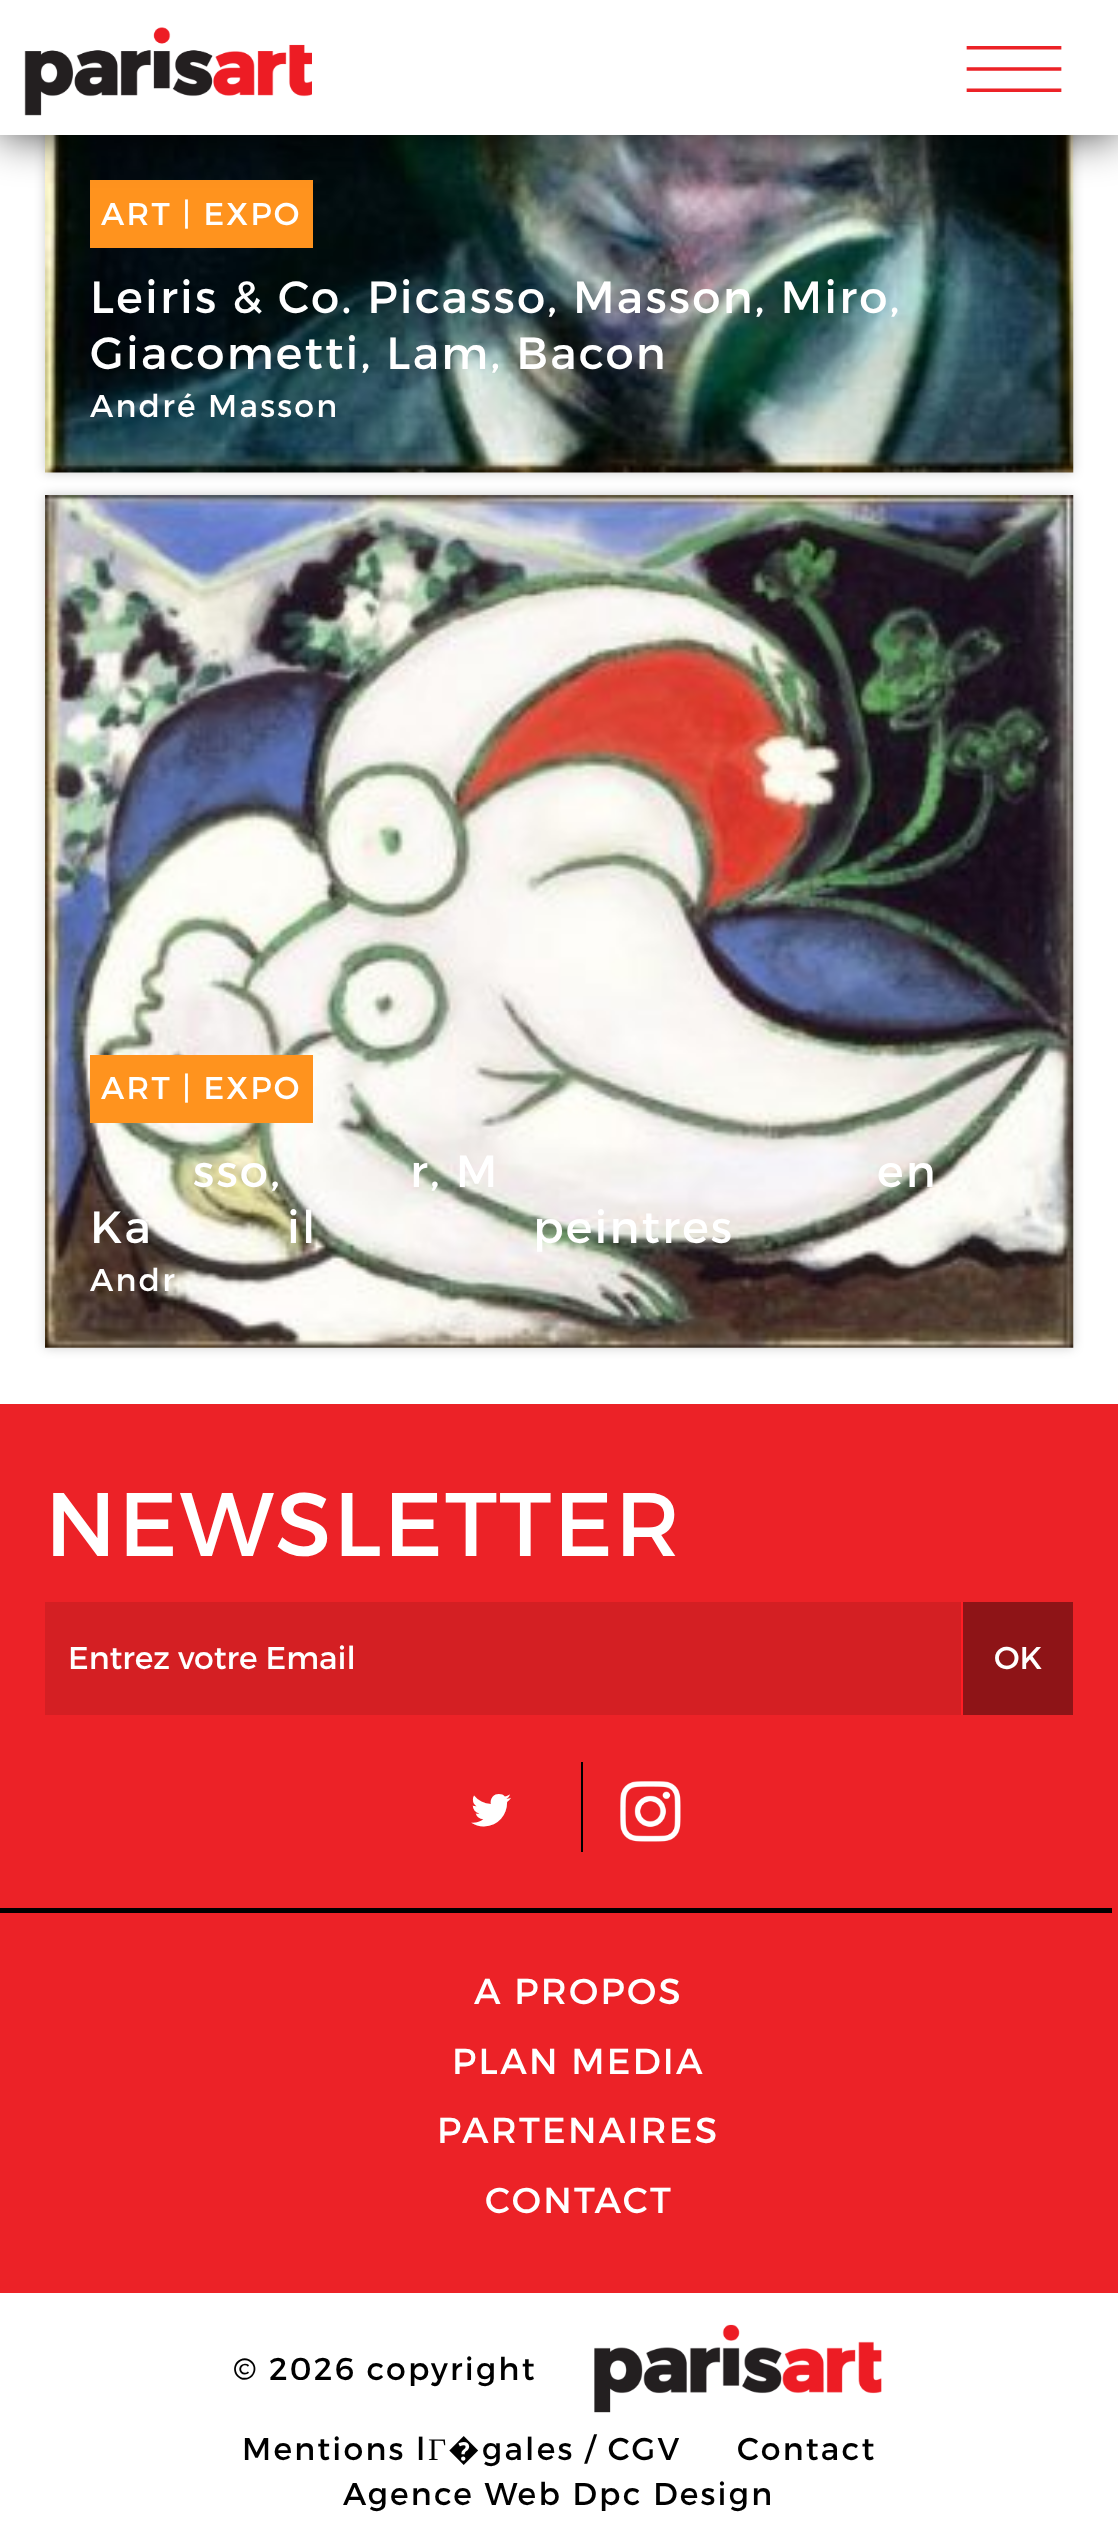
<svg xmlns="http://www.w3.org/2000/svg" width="1118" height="2537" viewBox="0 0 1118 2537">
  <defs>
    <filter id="blur1" x="-50%" y="-200%" width="200%" height="500%"><feGaussianBlur stdDeviation="5.5"/></filter>
    <filter id="blur2" x="-50%" y="-200%" width="200%" height="500%"><feGaussianBlur stdDeviation="22.5"/></filter>
  </defs>
  <rect width="100%" height="100%" fill="#ffffff"/>
  <rect x="45" y="-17" width="1028" height="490" fill="#000000" fill-opacity="0.2" filter="url(#blur1)"/>
  <image x="45" y="135" width="1029" height="338" href="img2.png"/>
  <rect x="90" y="180" width="223" height="68" fill="#ff931e"/>
  <rect x="0" y="0" width="1118" height="135" fill="#000000" fill-opacity="0.75" filter="url(#blur2)"/>
  <rect x="0" y="0" width="1118" height="135" fill="#ffffff"/>
  <image x="24" y="27" width="288" height="89" href="img1.png"/>
  <text x="941" y="142" font-family="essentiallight" font-size="146" font-weight="300" fill="#ec2227">m</text>
  <text x="101" y="225" font-family="Montserrat" font-size="31.5" letter-spacing="2.25" fill="#ffffff">ART | EXPO</text>
  <text x="90" y="313" font-family="Montserrat" font-size="45" letter-spacing="2.25" fill="#ffffff">Leiris &amp; Co. Picasso, Masson, Miro,</text>
  <text x="90" y="369" font-family="Montserrat" font-size="45" letter-spacing="2.25" fill="#ffffff">Giacometti, Lam, Bacon</text>
  <text x="90" y="417" font-family="Montserrat" font-size="31.5" letter-spacing="2.25" fill="#ffffff">André Masson</text>
  <rect x="45" y="495" width="1028" height="853" fill="#000000" fill-opacity="0.2" filter="url(#blur1)"/>
  <image x="45" y="495" width="1029" height="853" href="img3.png"/>
  <rect x="90" y="1055" width="223" height="68" fill="#ff931e"/>
  <text x="101" y="1099" font-family="Montserrat" font-size="31.5" letter-spacing="2.25" fill="#ffffff">ART | EXPO</text>
  <text x="193" y="1187" font-family="Montserrat" font-size="45" letter-spacing="2.25" fill="#ffffff">sso,</text>
  <text x="410" y="1187" font-family="Montserrat" font-size="45" letter-spacing="2.25" fill="#ffffff">r, M</text>
  <text x="877" y="1187" font-family="Montserrat" font-size="45" letter-spacing="2.25" fill="#ffffff">en</text>
  <text x="90" y="1243" font-family="Montserrat" font-size="45" letter-spacing="2.25" fill="#ffffff">Ka</text>
  <text x="287" y="1243" font-family="Montserrat" font-size="45" letter-spacing="2.25" fill="#ffffff">il</text>
  <text x="533" y="1243" font-family="Montserrat" font-size="45" letter-spacing="2.25" fill="#ffffff">peintres</text>
  <text x="90" y="1291" font-family="Montserrat" font-size="31.5" letter-spacing="2.25" fill="#ffffff">Andr</text>
  <rect x="0" y="1404" width="1118" height="889" fill="#ec2227"/>
  <text x="45" y="1556" font-family="Montserrat" font-size="90" letter-spacing="2.25" fill="#ffffff">NEWSLETTER</text>
  <rect x="45" y="1602" width="916" height="113" fill="#d41f23"/>
  <text x="68" y="1669" font-family="Montserrat" font-size="31.5" fill="#ffffff">Entrez votre Email</text>
  <rect x="963" y="1602" width="110" height="113" fill="#8e1417"/>
  <rect x="961" y="1602" width="2" height="113" fill="#ff1d25"/>
  <text x="994" y="1669" font-family="Montserrat" font-size="31.5" fill="#ffffff">OK</text>
  <rect x="581" y="1762" width="2" height="90" fill="#000000"/>
  <text x="463" y="1834" font-family="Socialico" font-size="68" letter-spacing="2.25" fill="#ffffff">L</text>
  <image x="620" y="1781" width="61" height="61" href="img4.png"/>
  <rect x="0" y="1908" width="1112" height="5" fill="#000000"/>
  <text x="474" y="2004" font-family="Montserrat" font-size="36" letter-spacing="2.25" fill="#ffffff">A PROPOS</text>
  <text x="452" y="2074" font-family="Montserrat" font-size="36" letter-spacing="2.25" fill="#ffffff">PLAN MEDIA</text>
  <text x="437" y="2143" font-family="Montserrat" font-size="36" letter-spacing="2.25" fill="#ffffff">PARTENAIRES</text>
  <text x="485" y="2213" font-family="Montserrat" font-size="36" letter-spacing="2.25" fill="#ffffff">CONTACT</text>
  <text x="233" y="2380" font-family="Montserrat" font-size="31.5" letter-spacing="2.25" fill="#000000">© 2026 copyright</text>
  <image x="594" y="2324" width="288" height="89" href="img5.png"/>
  <text x="242" y="2460" font-family="Montserrat" font-size="31.5" letter-spacing="2.25" fill="#000000">Mentions l</text>
  <text x="428" y="2460" font-family="Liberation Serif" font-size="31.5" letter-spacing="2.25" fill="#000000">Г</text>
  <text x="448" y="2460" font-family="Noto Sans" font-size="31.5" letter-spacing="2.25" fill="#000000">�</text>
  <text x="482" y="2460" font-family="Montserrat" font-size="31.5" letter-spacing="2.25" fill="#000000">gales / CGV</text>
  <text x="737" y="2460" font-family="Montserrat" font-size="31.5" letter-spacing="2.25" fill="#000000">Contact</text>
  <text x="343" y="2505" font-family="Montserrat" font-size="31.5" letter-spacing="2.25" fill="#000000">Agence Web Dpc Design</text>
</svg>
